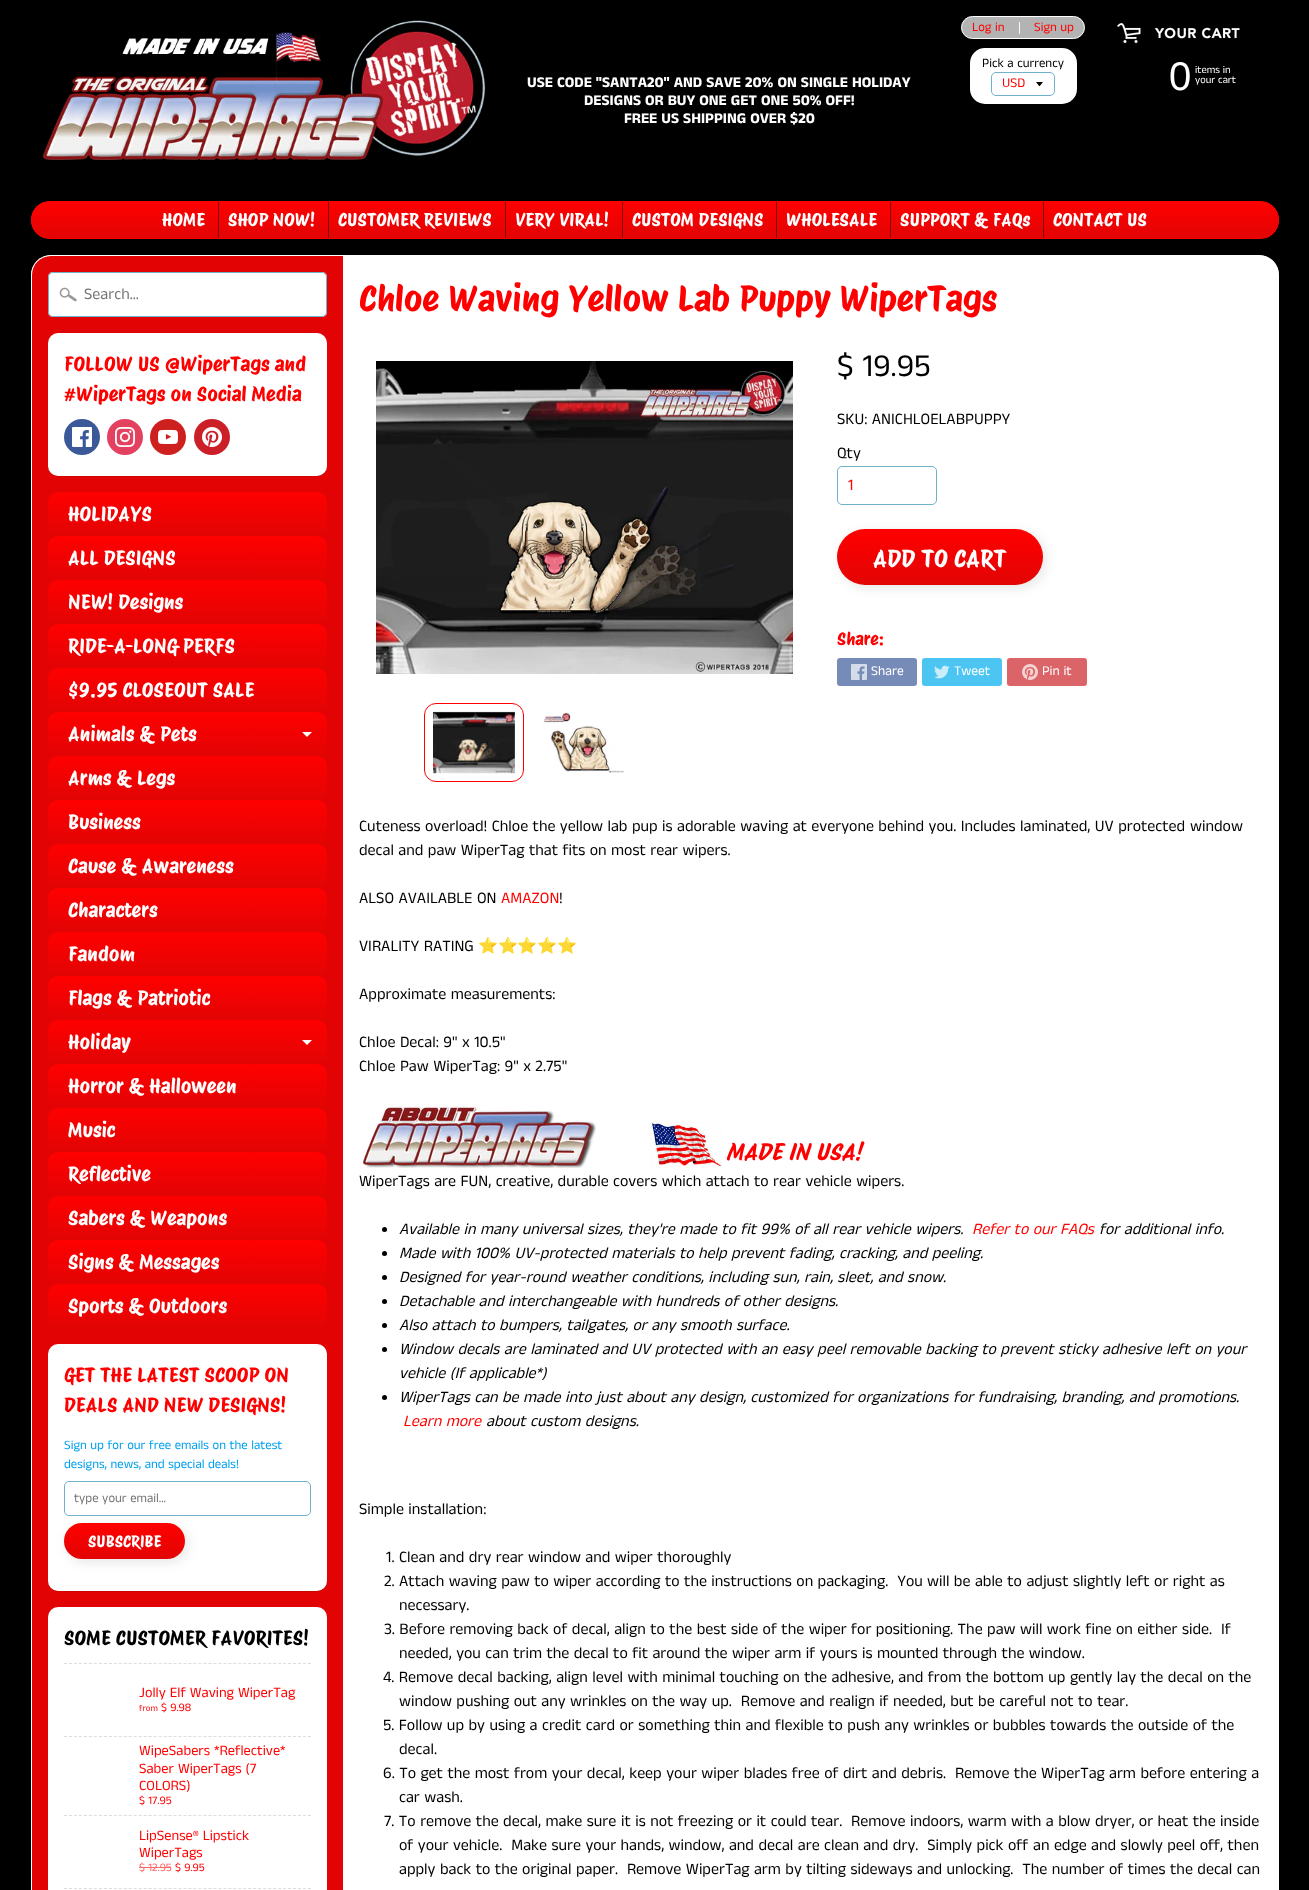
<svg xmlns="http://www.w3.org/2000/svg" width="1309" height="1890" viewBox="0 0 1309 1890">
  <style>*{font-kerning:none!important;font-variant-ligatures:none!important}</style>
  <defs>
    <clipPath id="clip1"><rect x="31" y="201" width="1248" height="38" rx="19"/></clipPath>
    <linearGradient id="g1" gradientUnits="userSpaceOnUse" x1="655" y1="202" x2="655" y2="238"><stop offset="0" stop-color="#ff0000"/><stop offset="1" stop-color="#e20404"/></linearGradient>
    <filter id="blur1" x="-50%" y="-200%" width="200%" height="500%"><feGaussianBlur stdDeviation="0.5"/></filter>
    <linearGradient id="g2" gradientUnits="userSpaceOnUse" x1="188" y1="492" x2="188" y2="536"><stop offset="0" stop-color="#ff0000"/><stop offset="1" stop-color="#e20404"/></linearGradient>
    <linearGradient id="g3" gradientUnits="userSpaceOnUse" x1="188" y1="536" x2="188" y2="580"><stop offset="0" stop-color="#ff0000"/><stop offset="1" stop-color="#e20404"/></linearGradient>
    <linearGradient id="g4" gradientUnits="userSpaceOnUse" x1="188" y1="580" x2="188" y2="624"><stop offset="0" stop-color="#ff0000"/><stop offset="1" stop-color="#e20404"/></linearGradient>
    <linearGradient id="g5" gradientUnits="userSpaceOnUse" x1="188" y1="624" x2="188" y2="668"><stop offset="0" stop-color="#ff0000"/><stop offset="1" stop-color="#e20404"/></linearGradient>
    <linearGradient id="g6" gradientUnits="userSpaceOnUse" x1="188" y1="668" x2="188" y2="712"><stop offset="0" stop-color="#ff0000"/><stop offset="1" stop-color="#e20404"/></linearGradient>
    <linearGradient id="g7" gradientUnits="userSpaceOnUse" x1="188" y1="712" x2="188" y2="756"><stop offset="0" stop-color="#ff0000"/><stop offset="1" stop-color="#e20404"/></linearGradient>
    <linearGradient id="g8" gradientUnits="userSpaceOnUse" x1="188" y1="756" x2="188" y2="800"><stop offset="0" stop-color="#ff0000"/><stop offset="1" stop-color="#e20404"/></linearGradient>
    <linearGradient id="g9" gradientUnits="userSpaceOnUse" x1="188" y1="800" x2="188" y2="844"><stop offset="0" stop-color="#ff0000"/><stop offset="1" stop-color="#e20404"/></linearGradient>
    <linearGradient id="g10" gradientUnits="userSpaceOnUse" x1="188" y1="844" x2="188" y2="888"><stop offset="0" stop-color="#ff0000"/><stop offset="1" stop-color="#e20404"/></linearGradient>
    <linearGradient id="g11" gradientUnits="userSpaceOnUse" x1="188" y1="888" x2="188" y2="932"><stop offset="0" stop-color="#ff0000"/><stop offset="1" stop-color="#e20404"/></linearGradient>
    <linearGradient id="g12" gradientUnits="userSpaceOnUse" x1="188" y1="932" x2="188" y2="976"><stop offset="0" stop-color="#ff0000"/><stop offset="1" stop-color="#e20404"/></linearGradient>
    <linearGradient id="g13" gradientUnits="userSpaceOnUse" x1="188" y1="976" x2="188" y2="1020"><stop offset="0" stop-color="#ff0000"/><stop offset="1" stop-color="#e20404"/></linearGradient>
    <linearGradient id="g14" gradientUnits="userSpaceOnUse" x1="188" y1="1020" x2="188" y2="1064"><stop offset="0" stop-color="#ff0000"/><stop offset="1" stop-color="#e20404"/></linearGradient>
    <linearGradient id="g15" gradientUnits="userSpaceOnUse" x1="188" y1="1064" x2="188" y2="1108"><stop offset="0" stop-color="#ff0000"/><stop offset="1" stop-color="#e20404"/></linearGradient>
    <linearGradient id="g16" gradientUnits="userSpaceOnUse" x1="188" y1="1108" x2="188" y2="1152"><stop offset="0" stop-color="#ff0000"/><stop offset="1" stop-color="#e20404"/></linearGradient>
    <linearGradient id="g17" gradientUnits="userSpaceOnUse" x1="188" y1="1152" x2="188" y2="1196"><stop offset="0" stop-color="#ff0000"/><stop offset="1" stop-color="#e20404"/></linearGradient>
    <linearGradient id="g18" gradientUnits="userSpaceOnUse" x1="188" y1="1196" x2="188" y2="1240"><stop offset="0" stop-color="#ff0000"/><stop offset="1" stop-color="#e20404"/></linearGradient>
    <linearGradient id="g19" gradientUnits="userSpaceOnUse" x1="188" y1="1240" x2="188" y2="1284"><stop offset="0" stop-color="#ff0000"/><stop offset="1" stop-color="#e20404"/></linearGradient>
    <linearGradient id="g20" gradientUnits="userSpaceOnUse" x1="188" y1="1284" x2="188" y2="1328"><stop offset="0" stop-color="#ff0000"/><stop offset="1" stop-color="#e20404"/></linearGradient>
    <filter id="blur2" x="-50%" y="-200%" width="200%" height="500%"><feGaussianBlur stdDeviation="6"/></filter>
    <linearGradient id="g21" gradientUnits="userSpaceOnUse" x1="125" y1="1523" x2="125" y2="1559"><stop offset="0" stop-color="#ff0000"/><stop offset="1" stop-color="#e20404"/></linearGradient>
    <linearGradient id="g22" gradientUnits="userSpaceOnUse" x1="940" y1="529" x2="940" y2="585"><stop offset="0" stop-color="#ff0000"/><stop offset="1" stop-color="#e20404"/></linearGradient>
  </defs>
  <rect width="100%" height="100%" fill="#000000"/>
  <rect x="961.5" y="16.5" width="123" height="22" rx="11" fill="#b3b3b3" stroke="#ffffff"/>
  <text x="972" y="31" font-family="Anek Tamil" font-size="12.75" fill="#ff0000">Log in</text>
  <text x="1018" y="31" font-family="Anek Tamil" font-size="12.75" fill="#ffffff">|</text>
  <text x="1034" y="31" font-family="Anek Tamil" font-size="12.75" fill="#ff0000">Sign up</text>
  <image x="42" y="20" width="444" height="140" href="img1.png"/>
  <text x="527" y="87" font-family="Anek Tamil" font-size="15" font-weight="bold" fill="#ffffff">USE CODE "SANTA20" AND SAVE 20% ON SINGLE HOLIDAY</text>
  <text x="584" y="105" font-family="Anek Tamil" font-size="15" font-weight="bold" fill="#ffffff">DESIGNS OR BUY ONE GET ONE 50% OFF!</text>
  <text x="624" y="123" font-family="Anek Tamil" font-size="15" font-weight="bold" fill="#ffffff">FREE US SHIPPING OVER $20</text>
  <image x="1117" y="23" width="125" height="21" href="img2.png"/>
  <text x="1169" y="90" font-family="Liberation Sans" font-size="40" fill="#ffffff">0</text>
  <text x="1195" y="73" font-family="Anek Tamil" font-size="10.5" fill="#ffffff">items in</text>
  <text x="1195" y="83" font-family="Anek Tamil" font-size="10.5" fill="#ffffff">your cart</text>
  <g clip-path="url(#clip1)">
    <rect x="31" y="202" width="1248" height="36" fill="url(#g1)"/>
  </g>
  <rect x="31.5" y="201.5" width="1247" height="37" rx="18.5" fill="none" stroke="#ff0000"/>
  <text x="162" y="226" font-family="Protest Riot" font-size="18" fill="#ffffff">HOME</text>
  <rect x="218" y="202" width="1" height="36" fill="#7e0505"/>
  <text x="228" y="226" font-family="Protest Riot" font-size="18" fill="#ffffff">SHOP NOW!</text>
  <rect x="328" y="202" width="1" height="36" fill="#7e0505"/>
  <text x="338" y="226" font-family="Protest Riot" font-size="18" fill="#ffffff">CUSTOMER REVIEWS</text>
  <rect x="505" y="202" width="1" height="36" fill="#7e0505"/>
  <text x="515" y="226" font-family="Protest Riot" font-size="18" fill="#ffffff">VERY VIRAL!</text>
  <rect x="622" y="202" width="1" height="36" fill="#7e0505"/>
  <text x="632" y="226" font-family="Protest Riot" font-size="18" fill="#ffffff">CUSTOM DESIGNS</text>
  <rect x="776" y="202" width="1" height="36" fill="#7e0505"/>
  <text x="786" y="226" font-family="Protest Riot" font-size="18" fill="#ffffff">WHOLESALE</text>
  <rect x="890" y="202" width="1" height="36" fill="#7e0505"/>
  <text x="900" y="226" font-family="Protest Riot" font-size="18" fill="#ffffff">SUPPORT &amp; FAQs</text>
  <rect x="1043" y="202" width="1" height="36" fill="#7e0505"/>
  <text x="1053" y="226" font-family="Protest Riot" font-size="18" fill="#ffffff">CONTACT US</text>
  <rect x="970" y="48" width="107" height="56" rx="15" fill="#ffffff"/>
  <text x="982" y="67" font-family="Anek Tamil" font-size="12.75" fill="#000000">Pick a currency</text>
  <path d="M1036 82C1040.5 87.5 1038.5 87.5 1043 82Z" fill="#000000"/>
  <rect x="991.5" y="72.5" width="63" height="23" rx="4.5" fill="none" stroke="#70b1cc"/>
  <text x="1002" y="87" font-family="Anek Tamil" font-size="13.5" fill="#ff0000">USD</text>
  <rect x="31" y="255" width="1248" height="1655" rx="20" fill="#ffffff"/>
  <rect x="31.5" y="255.5" width="1247" height="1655" rx="19.5" fill="none" stroke="#ffffff" stroke-opacity="0.7"/>
  <path d="M51 256H343V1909H51C40.5 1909 32 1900.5 32 1890V275C32 264.5 40.5 256 51 256Z" fill="#e20404"/>
  <rect x="48" y="272" width="279" height="45" rx="5" fill="#ffffff"/>
  <image x="59" y="287" width="18" height="15" href="img3.png"/>
  <rect x="48.5" y="272.5" width="278" height="44" rx="4.5" fill="none" stroke="#70b1cc"/>
  <text x="84" y="299" font-family="Anek Tamil" font-size="16" fill="#757575">Search...</text>
  <rect x="48" y="334" width="279" height="143" rx="10" fill="#000000" fill-opacity="0.1" filter="url(#blur1)"/>
  <rect x="48" y="333" width="279" height="143" rx="10" fill="#ffffff"/>
  <text x="64" y="371" font-family="Protest Riot" font-size="20" fill="#ff0000">FOLLOW US @WiperTags and</text>
  <text x="64" y="401" font-family="Protest Riot" font-size="20" fill="#ff0000">#WiperTags on Social Media</text>
  <circle cx="82" cy="437" r="18" fill="#3b5998"/>
  <image x="72" y="427" width="20" height="20" href="img4.png"/>
  <circle cx="125" cy="437" r="18" fill="#e4405f"/>
  <image x="115" y="427" width="20" height="20" href="img5.png"/>
  <circle cx="168" cy="437" r="18" fill="#cd201f"/>
  <image x="158" y="429" width="20" height="15" href="img6.png"/>
  <circle cx="212" cy="437" r="18" fill="#cb2027"/>
  <image x="202" y="427" width="20" height="20" href="img7.png"/>
  <rect x="48" y="492" width="279" height="44" rx="10" fill="url(#g2)"/>
  <text x="68" y="521" font-family="Protest Riot" font-size="20" fill="#ffffff">HOLIDAYS</text>
  <rect x="48" y="536" width="279" height="44" rx="10" fill="url(#g3)"/>
  <text x="68" y="565" font-family="Protest Riot" font-size="20" fill="#ffffff">ALL DESIGNS</text>
  <rect x="48" y="580" width="279" height="44" rx="10" fill="url(#g4)"/>
  <text x="68" y="609" font-family="Protest Riot" font-size="20" fill="#ffffff">NEW! Designs</text>
  <rect x="48" y="624" width="279" height="44" rx="10" fill="url(#g5)"/>
  <text x="68" y="653" font-family="Protest Riot" font-size="20" fill="#ffffff">RIDE-A-LONG PERFS</text>
  <rect x="48" y="668" width="279" height="44" rx="10" fill="url(#g6)"/>
  <text x="68" y="697" font-family="Protest Riot" font-size="20" fill="#ffffff">$9.95 CLOSEOUT SALE</text>
  <rect x="48" y="712" width="279" height="44" rx="10" fill="url(#g7)"/>
  <text x="68" y="741" font-family="Protest Riot" font-size="20" fill="#ffffff">Animals &amp; Pets</text>
  <path d="M302 732H312L307 737Z" fill="#ffffff"/>
  <rect x="48" y="756" width="279" height="44" rx="10" fill="url(#g8)"/>
  <text x="68" y="785" font-family="Protest Riot" font-size="20" fill="#ffffff">Arms &amp; Legs</text>
  <rect x="48" y="800" width="279" height="44" rx="10" fill="url(#g9)"/>
  <text x="68" y="829" font-family="Protest Riot" font-size="20" fill="#ffffff">Business</text>
  <rect x="48" y="844" width="279" height="44" rx="10" fill="url(#g10)"/>
  <text x="68" y="873" font-family="Protest Riot" font-size="20" fill="#ffffff">Cause &amp; Awareness</text>
  <rect x="48" y="888" width="279" height="44" rx="10" fill="url(#g11)"/>
  <text x="68" y="917" font-family="Protest Riot" font-size="20" fill="#ffffff">Characters</text>
  <rect x="48" y="932" width="279" height="44" rx="10" fill="url(#g12)"/>
  <text x="68" y="961" font-family="Protest Riot" font-size="20" fill="#ffffff">Fandom</text>
  <rect x="48" y="976" width="279" height="44" rx="10" fill="url(#g13)"/>
  <text x="68" y="1005" font-family="Protest Riot" font-size="20" fill="#ffffff">Flags &amp; Patriotic</text>
  <rect x="48" y="1020" width="279" height="44" rx="10" fill="url(#g14)"/>
  <text x="68" y="1049" font-family="Protest Riot" font-size="20" fill="#ffffff">Holiday</text>
  <path d="M302 1040H312L307 1045Z" fill="#ffffff"/>
  <rect x="48" y="1064" width="279" height="44" rx="10" fill="url(#g15)"/>
  <text x="68" y="1093" font-family="Protest Riot" font-size="20" fill="#ffffff">Horror &amp; Halloween</text>
  <rect x="48" y="1108" width="279" height="44" rx="10" fill="url(#g16)"/>
  <text x="68" y="1137" font-family="Protest Riot" font-size="20" fill="#ffffff">Music</text>
  <rect x="48" y="1152" width="279" height="44" rx="10" fill="url(#g17)"/>
  <text x="68" y="1181" font-family="Protest Riot" font-size="20" fill="#ffffff">Reflective</text>
  <rect x="48" y="1196" width="279" height="44" rx="10" fill="url(#g18)"/>
  <text x="68" y="1225" font-family="Protest Riot" font-size="20" fill="#ffffff">Sabers &amp; Weapons</text>
  <rect x="48" y="1240" width="279" height="44" rx="10" fill="url(#g19)"/>
  <text x="68" y="1269" font-family="Protest Riot" font-size="20" fill="#ffffff">Signs &amp; Messages</text>
  <rect x="48" y="1284" width="279" height="44" rx="10" fill="url(#g20)"/>
  <text x="68" y="1313" font-family="Protest Riot" font-size="20" fill="#ffffff">Sports &amp; Outdoors</text>
  <rect x="48" y="1345" width="279" height="247" rx="10" fill="#000000" fill-opacity="0.1" filter="url(#blur1)"/>
  <rect x="48" y="1344" width="279" height="247" rx="10" fill="#ffffff"/>
  <text x="64" y="1382" font-family="Protest Riot" font-size="20" fill="#ff0000">GET THE LATEST SCOOP ON</text>
  <text x="64" y="1412" font-family="Protest Riot" font-size="20" fill="#ff0000">DEALS AND NEW DESIGNS!</text>
  <text x="64" y="1449" font-family="Anek Tamil" font-size="12.75" fill="#00a0ed">Sign up for our free emails on the latest</text>
  <text x="64" y="1468" font-family="Anek Tamil" font-size="12.75" fill="#00a0ed">designs, news, and special deals!</text>
  <rect x="64.5" y="1481.5" width="246" height="34" rx="4.5" fill="none" stroke="#70b1cc"/>
  <text x="74" y="1502" font-family="Anek Tamil" font-size="12.75" fill="#757575">type your email...</text>
  <rect x="67" y="1526" width="121" height="36" rx="18" fill="#000000" fill-opacity="0.1" filter="url(#blur2)"/>
  <rect x="64" y="1523" width="121" height="36" rx="18" fill="url(#g21)"/>
  <text x="88" y="1547" font-family="Protest Riot" font-size="16" fill="#ffffff">SUBSCRIBE</text>
  <rect x="48" y="1607" width="279" height="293" rx="10" fill="#ffffff"/>
  <text x="64" y="1645" font-family="Protest Riot" font-size="20" fill="#000000">SOME CUSTOMER FAVORITES!</text>
  <path d="M64 1663.5H311" fill="none" stroke="#dddddd" stroke-dasharray="3 1.98"/>
  <text x="139" y="1697" font-family="Anek Tamil" font-size="14.4" fill="#ff0000">Jolly Elf Waving WiperTag</text>
  <text x="139" y="1711" font-family="Anek Tamil" font-size="9" fill="#ff0000">from</text>
  <text x="161" y="1711" font-family="Anek Tamil" font-size="11.5" fill="#ff0000">$ 9.98</text>
  <path d="M64 1736.5H311" fill="none" stroke="#dddddd" stroke-dasharray="3 1.98"/>
  <text x="139" y="1755" font-family="Anek Tamil" font-size="14.4" fill="#ff0000">WipeSabers *Reflective*</text>
  <text x="139" y="1773" font-family="Anek Tamil" font-size="14.4" fill="#ff0000">Saber WiperTags (7</text>
  <text x="139" y="1790" font-family="Anek Tamil" font-size="14.4" fill="#ff0000">COLORS)</text>
  <text x="139" y="1804" font-family="Anek Tamil" font-size="11.5" fill="#ff0000">$ 17.95</text>
  <path d="M64 1815.5H311" fill="none" stroke="#dddddd" stroke-dasharray="3 1.98"/>
  <text x="139" y="1840" font-family="Anek Tamil" font-size="14.4" fill="#ff0000">LipSense® Lipstick</text>
  <text x="139" y="1857" font-family="Anek Tamil" font-size="14.4" fill="#ff0000">WiperTags</text>
  <text x="139" y="1871" font-family="Anek Tamil" font-size="11.5" fill="#ff6666">$ 12.95</text>
  <rect x="139" y="1867" width="32" height="1" fill="#ff6666"/>
  <text x="175" y="1871" font-family="Anek Tamil" font-size="11.5" fill="#ff0000">$ 9.95</text>
  <path d="M64 1888.5H311" fill="none" stroke="#dddddd" stroke-dasharray="3 1.98"/>
  <text x="359" y="311" font-family="Protest Riot" font-size="35.25" fill="#ff0000">Chloe Waving Yellow Lab Puppy WiperTags</text>
  <image x="376" y="361" width="417" height="313" href="img8.png"/>
  <rect x="424.5" y="703.5" width="99" height="78" rx="11.5" fill="none" stroke="#ff0000"/>
  <image x="433" y="711" width="82" height="63" href="img9.png"/>
  <image x="543" y="712" width="82" height="61" href="img10.png"/>
  <text x="837" y="376" font-family="Anek Tamil" font-size="32" fill="#000000">$ 19.95</text>
  <text x="837" y="424" font-family="Anek Tamil" font-size="16" fill="#000000">SKU: ANICHLOELABPUPPY</text>
  <text x="837" y="458" font-family="Anek Tamil" font-size="16" fill="#000000">Qty</text>
  <rect x="837.5" y="466.5" width="99" height="38" rx="4.5" fill="none" stroke="#70b1cc"/>
  <text x="848" y="490" font-family="Anek Tamil" font-size="16" fill="#ff0000">1</text>
  <rect x="840" y="532" width="206" height="56" rx="28" fill="#000000" fill-opacity="0.1" filter="url(#blur2)"/>
  <rect x="837" y="529" width="206" height="56" rx="28" fill="url(#g22)"/>
  <text x="873" y="567" font-family="Protest Riot" font-size="24" fill="#ffffff">ADD TO CART</text>
  <text x="837" y="645" font-family="Protest Riot" font-size="17.5" fill="#ff0000">Share:</text>
  <rect x="837" y="658" width="80" height="28" rx="3" fill="#768bb7"/>
  <image x="851" y="664" width="16" height="16" href="img11.png"/>
  <text x="871" y="675" font-family="Anek Tamil" font-size="13.5" fill="#ffffff">Share</text>
  <rect x="922" y="658" width="80" height="28" rx="3" fill="#4dc5f2"/>
  <image x="934" y="665" width="16" height="14" href="img12.png"/>
  <text x="954" y="675" font-family="Anek Tamil" font-size="13.5" fill="#ffffff">Tweet</text>
  <rect x="1007" y="658" width="80" height="28" rx="3" fill="#db6468"/>
  <image x="1022" y="664" width="16" height="16" href="img13.png"/>
  <text x="1042" y="675" font-family="Anek Tamil" font-size="13.5" fill="#ffffff">Pin it</text>
  <text x="359" y="831" font-family="Anek Tamil" font-size="16" fill="#000000">Cuteness overload! Chloe the yellow lab pup is adorable waving at everyone behind you. Includes laminated, UV protected</text>
  <text x="1190" y="831" font-family="Anek Tamil" font-size="16" fill="#000000">window</text>
  <text x="359" y="855" font-family="Anek Tamil" font-size="16" fill="#000000">decal and paw WiperTag that fits on most rear wipers.</text>
  <text x="359" y="903" font-family="Anek Tamil" font-size="16" fill="#000000">ALSO AVAILABLE ON</text>
  <text x="501" y="903" font-family="Anek Tamil" font-size="16" fill="#ff0000">AMAZON</text>
  <text x="559" y="903" font-family="Anek Tamil" font-size="16" fill="#000000">!</text>
  <text x="359" y="951" font-family="Anek Tamil" font-size="16" fill="#000000">VIRALITY RATING</text>
  <text x="478" y="951" font-family="Noto Color Emoji" font-size="16" fill="#000000">⭐⭐⭐⭐⭐</text>
  <text x="359" y="999" font-family="Anek Tamil" font-size="16" fill="#000000">Approximate measurements:</text>
  <text x="359" y="1047" font-family="Anek Tamil" font-size="16" fill="#000000">Chloe Decal: 9" x 10.5"</text>
  <text x="359" y="1071" font-family="Anek Tamil" font-size="16" fill="#000000">Chloe Paw WiperTag: 9" x 2.75"</text>
  <image x="363" y="1106" width="233" height="62" href="img14.png"/>
  <image x="649" y="1121" width="73" height="47" href="img15.png"/>
  <text x="726" y="1160" font-family="Protest Riot" font-size="23.25" font-style="italic" fill="#ff0000">MADE IN USA!</text>
  <text x="359" y="1186" font-family="Anek Tamil" font-size="16" fill="#000000">WiperTags are FUN, creative, durable covers which attach</text>
  <text x="754" y="1186" font-family="Anek Tamil" font-size="16" fill="#000000">to rear vehicle wipers.</text>
  <circle cx="384.5" cy="1229.5" r="2.5" fill="#000000"/>
  <text x="399" y="1234" font-family="Anek Tamil" font-size="16" font-style="italic" fill="#000000">Available in many universal sizes, they're made to fit 99% of all rear vehicle wipers.</text>
  <text x="972" y="1234" font-family="Anek Tamil" font-size="16" font-style="italic" fill="#ff0000">Refer to our FAQs</text>
  <text x="1099" y="1234" font-family="Anek Tamil" font-size="16" font-style="italic" fill="#000000">for additional info.</text>
  <circle cx="384.5" cy="1253.5" r="2.5" fill="#000000"/>
  <text x="399" y="1258" font-family="Anek Tamil" font-size="16" font-style="italic" fill="#000000">Made with 100% UV-protected materials to help prevent fading, cracking, and peeling.</text>
  <circle cx="384.5" cy="1277.5" r="2.5" fill="#000000"/>
  <text x="399" y="1282" font-family="Anek Tamil" font-size="16" font-style="italic" fill="#000000">Designed for year-round weather conditions, including sun, rain, sleet, and snow.</text>
  <circle cx="384.5" cy="1301.5" r="2.5" fill="#000000"/>
  <text x="399" y="1306" font-family="Anek Tamil" font-size="16" font-style="italic" fill="#000000">Detachable and interchangeable with hundreds of other designs.</text>
  <circle cx="384.5" cy="1325.5" r="2.5" fill="#000000"/>
  <text x="399" y="1330" font-family="Anek Tamil" font-size="16" font-style="italic" fill="#000000">Also attach to bumpers, tailgates, or any smooth surface.</text>
  <circle cx="384.5" cy="1349.5" r="2.5" fill="#000000"/>
  <text x="399" y="1354" font-family="Anek Tamil" font-size="16" font-style="italic" fill="#000000">Window decals are laminated and UV protected with an easy peel removable backing to prevent sticky</text>
  <text x="1102" y="1354" font-family="Anek Tamil" font-size="16" font-style="italic" fill="#000000">adhesive left on your</text>
  <text x="399" y="1378" font-family="Anek Tamil" font-size="16" font-style="italic" fill="#000000">vehicle (If applicable*)</text>
  <circle cx="384.5" cy="1397.5" r="2.5" fill="#000000"/>
  <text x="399" y="1402" font-family="Anek Tamil" font-size="16" font-style="italic" fill="#000000">WiperTags can be made into just about any design, customized for organizations</text>
  <text x="953" y="1402" font-family="Anek Tamil" font-size="16" font-style="italic" fill="#000000">for fundraising, branding, and promotions.</text>
  <text x="403" y="1426" font-family="Anek Tamil" font-size="16" font-style="italic" fill="#ff0000">Learn more</text>
  <text x="486" y="1426" font-family="Anek Tamil" font-size="16" font-style="italic" fill="#000000">about custom designs.</text>
  <text x="359" y="1514" font-family="Anek Tamil" font-size="16" fill="#000000">Simple installation:</text>
  <text x="386" y="1562" font-family="Anek Tamil" font-size="16" fill="#000000">1. Clean and dry rear window and wiper thoroughly</text>
  <text x="384" y="1586" font-family="Anek Tamil" font-size="16" fill="#000000" xml:space="preserve">2. Attach waving paw to wiper according to the instructions on packaging.  You</text>
  <text x="927" y="1586" font-family="Anek Tamil" font-size="16" fill="#000000">will be able to adjust slightly left or right as</text>
  <text x="399" y="1610" font-family="Anek Tamil" font-size="16" fill="#000000">necessary.</text>
  <text x="384" y="1634" font-family="Anek Tamil" font-size="16" fill="#000000" xml:space="preserve">3. Before removing back of decal, align to the best side of the wiper for positioning. The paw will work fine on either side.  If</text>
  <text x="399" y="1658" font-family="Anek Tamil" font-size="16" fill="#000000">needed, you can trim the decal to fit around the wiper arm if yours is mounted through the window.</text>
  <text x="383" y="1682" font-family="Anek Tamil" font-size="16" fill="#000000">4. Remove decal backing, align level with minimal touching on the adhesive, and from the bottom up gently lay the decal on the</text>
  <text x="399" y="1706" font-family="Anek Tamil" font-size="16" fill="#000000" xml:space="preserve">window pushing out any wrinkles on the way up.  Remove and realign if needed, but be careful not to tear.</text>
  <text x="383" y="1730" font-family="Anek Tamil" font-size="16" fill="#000000">5. Follow up by using a credit card or something thin and flexible to push any wrinkles or bubbles towards the outside of the</text>
  <text x="399" y="1754" font-family="Anek Tamil" font-size="16" fill="#000000">decal.</text>
  <text x="383" y="1778" font-family="Anek Tamil" font-size="16" fill="#000000" xml:space="preserve">6. To get the most from your decal, keep your wiper blades free of dirt and debris.  Remove the WiperTag</text>
  <text x="1109" y="1778" font-family="Anek Tamil" font-size="16" fill="#000000">arm before entering a</text>
  <text x="399" y="1802" font-family="Anek Tamil" font-size="16" fill="#000000">car wash.</text>
  <text x="384" y="1826" font-family="Anek Tamil" font-size="16" fill="#000000">7. To remove the decal, make sure</text>
  <text x="621" y="1826" font-family="Anek Tamil" font-size="16" fill="#000000" xml:space="preserve">it is not freezing or it could tear.  Remove indoors, warm with a blow dryer, or heat the inside</text>
  <text x="399" y="1850" font-family="Anek Tamil" font-size="16" fill="#000000" xml:space="preserve">of your vehicle.  Make sure your hands, window, and decal are clean and dry.  Simply pick off</text>
  <text x="1033" y="1850" font-family="Anek Tamil" font-size="16" fill="#000000">an edge and slowly peel off, then</text>
  <text x="399" y="1874" font-family="Anek Tamil" font-size="16" fill="#000000" xml:space="preserve">apply back to the original paper.  Remove WiperTag arm by tilting sideways</text>
  <text x="917" y="1874" font-family="Anek Tamil" font-size="16" fill="#000000" xml:space="preserve">and unlocking.  The number of times the decal can</text>
</svg>
